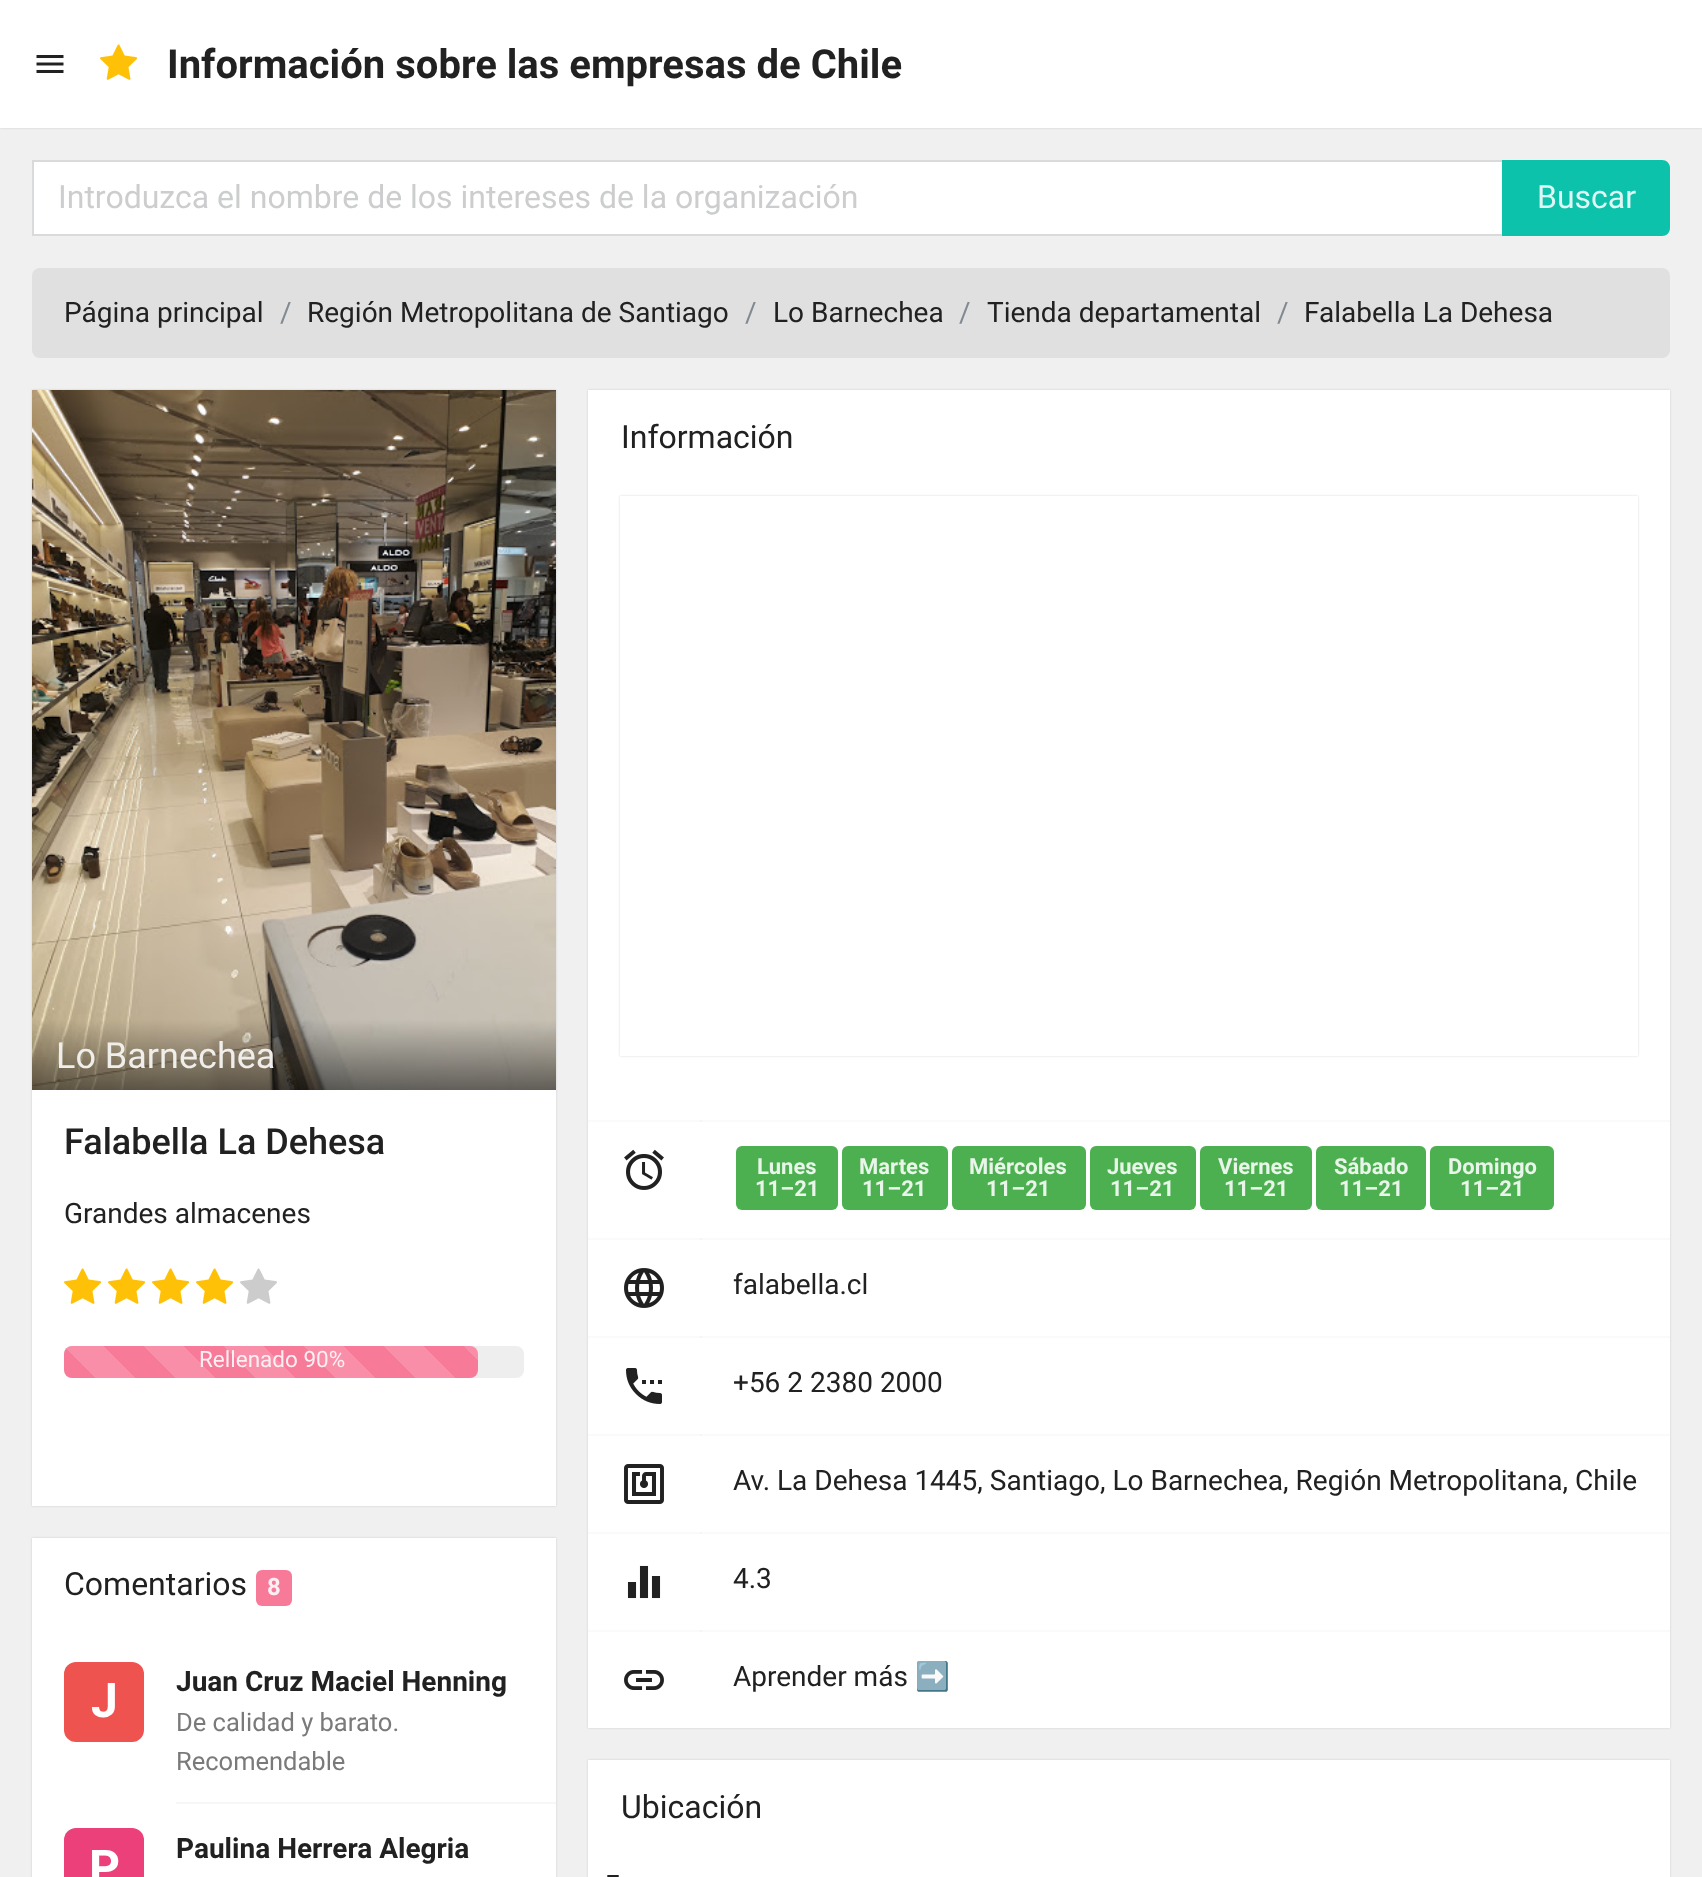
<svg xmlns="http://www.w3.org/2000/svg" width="1702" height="1877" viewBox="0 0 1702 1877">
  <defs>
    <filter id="blur1" x="-50%" y="-200%" width="200%" height="500%"><feGaussianBlur stdDeviation="1"/></filter>
    <linearGradient id="g1" gradientUnits="userSpaceOnUse" x1="64" y1="1426" x2="144" y2="1346"><stop offset="0.25" stop-color="#ffffff" stop-opacity="0.15"/><stop offset="0.25" stop-color="#ffffff" stop-opacity="0"/><stop offset="0.5" stop-color="#ffffff" stop-opacity="0"/><stop offset="0.5" stop-color="#ffffff" stop-opacity="0.15"/><stop offset="0.75" stop-color="#ffffff" stop-opacity="0.15"/><stop offset="0.75" stop-color="#ffffff" stop-opacity="0"/><stop offset="1" stop-color="#000000" stop-opacity="0"/></linearGradient>
    <linearGradient id="g2" gradientUnits="userSpaceOnUse" x1="144" y1="1426" x2="224" y2="1346"><stop offset="0.25" stop-color="#f88ea8"/><stop offset="0.25" stop-color="#f77a99"/><stop offset="0.5" stop-color="#f77a99"/><stop offset="0.5" stop-color="#f88ea8"/><stop offset="0.75" stop-color="#f88ea8"/><stop offset="0.75" stop-color="#f77a99"/><stop offset="1" stop-color="#f77a99"/></linearGradient>
    <linearGradient id="g3" gradientUnits="userSpaceOnUse" x1="224" y1="1426" x2="304" y2="1346"><stop offset="0.25" stop-color="#f88ea8"/><stop offset="0.25" stop-color="#f77a99"/><stop offset="0.5" stop-color="#f77a99"/><stop offset="0.5" stop-color="#f88ea8"/><stop offset="0.75" stop-color="#f88ea8"/><stop offset="0.75" stop-color="#f77a99"/><stop offset="1" stop-color="#f77a99"/></linearGradient>
    <linearGradient id="g4" gradientUnits="userSpaceOnUse" x1="304" y1="1426" x2="384" y2="1346"><stop offset="0.25" stop-color="#f88ea8"/><stop offset="0.25" stop-color="#f77a99"/><stop offset="0.5" stop-color="#f77a99"/><stop offset="0.5" stop-color="#f88ea8"/><stop offset="0.75" stop-color="#f88ea8"/><stop offset="0.75" stop-color="#f77a99"/><stop offset="1" stop-color="#f77a99"/></linearGradient>
    <linearGradient id="g5" gradientUnits="userSpaceOnUse" x1="384" y1="1426" x2="464" y2="1346"><stop offset="0.25" stop-color="#f88ea8"/><stop offset="0.25" stop-color="#f77a99"/><stop offset="0.5" stop-color="#f77a99"/><stop offset="0.5" stop-color="#f88ea8"/><stop offset="0.75" stop-color="#f88ea8"/><stop offset="0.75" stop-color="#f77a99"/><stop offset="1" stop-color="#f77a99"/></linearGradient>
    <linearGradient id="g6" gradientUnits="userSpaceOnUse" x1="464" y1="1426" x2="544" y2="1346"><stop offset="0.25" stop-color="#ffffff" stop-opacity="0.15"/><stop offset="0.25" stop-color="#ffffff" stop-opacity="0"/><stop offset="0.5" stop-color="#ffffff" stop-opacity="0"/><stop offset="0.5" stop-color="#ffffff" stop-opacity="0.15"/><stop offset="0.75" stop-color="#ffffff" stop-opacity="0.15"/><stop offset="0.75" stop-color="#ffffff" stop-opacity="0"/><stop offset="1" stop-color="#000000" stop-opacity="0"/></linearGradient>
    <clipPath id="clip1"><path d="M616 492H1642V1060H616ZM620 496H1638V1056H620Z" clip-rule="evenodd"/></clipPath>
  </defs>
  <rect width="100%" height="100%" fill="#f0f0f0"/>
  <rect x="0" y="0" width="1702" height="128" fill="#000000" fill-opacity="0.15" filter="url(#blur1)"/>
  <rect x="0" y="0" width="1702" height="128" fill="#ffffff"/>
  <image x="36" y="55" width="28" height="18" href="img1.png"/>
  <image x="100" y="44" width="38" height="36" href="img2.png"/>
  <text x="167" y="78" font-family="Roboto" font-size="40" font-weight="bold" fill="#212121">Información sobre las empresas de Chile</text>
  <rect x="33" y="161" width="1470" height="74" fill="#ffffff" stroke="#d8dadc" stroke-width="2"/>
  <text x="58" y="208" font-family="Roboto" font-size="32" fill="#cccdce">Introduzca el nombre de los intereses de la organización</text>
  <path d="M1502 160H1662C1666.5 160 1670 163.5 1670 168V228C1670 232.5 1666.5 236 1662 236H1502Z" fill="#0cc2aa"/>
  <text x="1537" y="208" font-family="Roboto" font-size="32" fill="#dff7f4">Buscar</text>
  <rect x="32" y="268" width="1638" height="90" rx="8" fill="#e0e0e0"/>
  <text x="64" y="322" font-family="Roboto" font-size="28" fill="#212121">Página principal</text>
  <text x="280" y="322" font-family="Roboto" font-size="28" fill="#818a91">/</text>
  <text x="307" y="322" font-family="Roboto" font-size="28" fill="#212121">Región Metropolitana de Santiago</text>
  <text x="745" y="322" font-family="Roboto" font-size="28" fill="#818a91">/</text>
  <text x="773" y="322" font-family="Roboto" font-size="28" fill="#212121">Lo Barnechea</text>
  <text x="959" y="322" font-family="Roboto" font-size="28" fill="#818a91">/</text>
  <text x="987" y="322" font-family="Roboto" font-size="28" fill="#212121">Tienda departamental</text>
  <text x="1277" y="322" font-family="Roboto" font-size="28" fill="#818a91">/</text>
  <text x="1304" y="322" font-family="Roboto" font-size="28" fill="#212121">Falabella La Dehesa</text>
  <rect x="32" y="390" width="524" height="1116" fill="#000000" fill-opacity="0.15" filter="url(#blur1)"/>
  <rect x="32" y="1090" width="524" height="416" fill="#ffffff"/>
  <image x="32" y="390" width="524" height="700" href="img3.png"/>
  <text x="56" y="1068" font-family="Roboto" font-size="36" fill="#efeeeb">Lo Barnechea</text>
  <text x="64" y="1154" font-family="Roboto" font-size="36" font-weight="500" fill="#212121">Falabella La Dehesa</text>
  <text x="64" y="1223" font-family="Roboto" font-size="28" fill="#212121">Grandes almacenes</text>
  <image x="64" y="1268" width="38" height="36" href="img2.png"/>
  <image x="108" y="1268" width="38" height="36" href="img2.png"/>
  <image x="152" y="1268" width="38" height="36" href="img2.png"/>
  <image x="196" y="1268" width="38" height="36" href="img2.png"/>
  <image x="240" y="1268" width="37" height="36" href="img4.png"/>
  <rect x="64" y="1346" width="460" height="32" rx="8" fill="#eeeeee"/>
  <rect x="64" y="1346" width="414" height="32" rx="8" fill="#f77a99"/>
  <path d="M72 1346H144V1378H72C67.5 1378 64 1374.5 64 1370V1354C64 1349.5 67.5 1346 72 1346Z" fill="url(#g1)"/>
  <rect x="144" y="1346" width="72" height="32" fill="url(#g2)"/>
  <rect x="224" y="1346" width="72" height="32" fill="url(#g3)"/>
  <rect x="304" y="1346" width="72" height="32" fill="url(#g4)"/>
  <rect x="384" y="1346" width="72" height="32" fill="url(#g5)"/>
  <path d="M464 1346H470C474.5 1346 478 1349.5 478 1354V1370C478 1374.5 474.5 1378 470 1378H464Z" fill="url(#g6)"/>
  <text x="199" y="1367" font-family="Roboto" font-size="22.5" fill="#feeff3">Rellenado 90%</text>
  <rect x="32" y="1538" width="524" height="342" fill="#000000" fill-opacity="0.15" filter="url(#blur1)"/>
  <rect x="32" y="1538" width="524" height="339" fill="#ffffff"/>
  <text x="64" y="1595" font-family="Roboto" font-size="32" fill="#212121">Comentarios</text>
  <rect x="256" y="1570" width="36" height="36" rx="6" fill="#f77a99"/>
  <text x="267" y="1595" font-family="Roboto" font-size="24" font-weight="bold" fill="#feeff3">8</text>
  <rect x="64" y="1662" width="80" height="80" rx="12" fill="#ef5350"/>
  <text x="91" y="1717" font-family="Roboto" font-size="48" font-weight="bold" fill="#ffffff">J</text>
  <text x="176" y="1691" font-family="Roboto" font-size="28" font-weight="bold" fill="#212121">Juan Cruz Maciel Henning</text>
  <text x="176" y="1731" font-family="Roboto" font-size="25.5" fill="#7a7a7a">De calidad y barato.</text>
  <text x="176" y="1770" font-family="Roboto" font-size="25.5" fill="#7a7a7a">Recomendable</text>
  <rect x="176" y="1802" width="380" height="2" fill="#f6f7f7"/>
  <rect x="64" y="1828" width="80" height="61" rx="12" fill="#ec407a"/>
  <text x="89" y="1884" font-family="Roboto" font-size="48" font-weight="bold" fill="#ffffff">P</text>
  <text x="176" y="1858" font-family="Roboto" font-size="28" font-weight="bold" fill="#212121">Paulina Herrera Alegria</text>
  <rect x="588" y="390" width="1082" height="1338" fill="#000000" fill-opacity="0.15" filter="url(#blur1)"/>
  <rect x="588" y="390" width="1082" height="1338" fill="#ffffff"/>
  <rect x="588" y="1120" width="114" height="2" fill="#fafafa"/>
  <rect x="588" y="1238" width="114" height="2" fill="#fafafa"/>
  <rect x="588" y="1336" width="114" height="2" fill="#fafafa"/>
  <rect x="588" y="1434" width="114" height="2" fill="#fafafa"/>
  <rect x="588" y="1532" width="114" height="2" fill="#fafafa"/>
  <rect x="588" y="1630" width="114" height="2" fill="#fafafa"/>
  <text x="621" y="448" font-family="Roboto" font-size="32" fill="#212121">Información</text>
  <g clip-path="url(#clip1)">
    <rect x="620" y="496" width="1018" height="560" fill="#000000" fill-opacity="0.15" filter="url(#blur1)"/>
  </g>
  <image x="624" y="1149" width="40" height="41" href="img5.png"/>
  <rect x="700" y="1120" width="970" height="2" fill="#f9fafa"/>
  <rect x="700" y="1120" width="2" height="2" fill="#f4f5f6"/>
  <rect x="736" y="1146" width="102" height="64" rx="6" fill="#4caf50"/>
  <text x="757" y="1174" font-family="Roboto" font-size="22" font-weight="bold" fill="#e8f5e8">Lunes</text>
  <text x="755" y="1196" font-family="Roboto" font-size="22" font-weight="bold" fill="#e8f5e8">11–21</text>
  <rect x="842" y="1146" width="106" height="64" rx="6" fill="#4caf50"/>
  <text x="859" y="1174" font-family="Roboto" font-size="22" font-weight="bold" fill="#e8f5e8">Martes</text>
  <text x="862" y="1196" font-family="Roboto" font-size="22" font-weight="bold" fill="#e8f5e8">11–21</text>
  <rect x="952" y="1146" width="134" height="64" rx="6" fill="#4caf50"/>
  <text x="969" y="1174" font-family="Roboto" font-size="22" font-weight="bold" fill="#e8f5e8">Miércoles</text>
  <text x="986" y="1196" font-family="Roboto" font-size="22" font-weight="bold" fill="#e8f5e8">11–21</text>
  <rect x="1090" y="1146" width="106" height="64" rx="6" fill="#4caf50"/>
  <text x="1107" y="1174" font-family="Roboto" font-size="22" font-weight="bold" fill="#e8f5e8">Jueves</text>
  <text x="1110" y="1196" font-family="Roboto" font-size="22" font-weight="bold" fill="#e8f5e8">11–21</text>
  <rect x="1200" y="1146" width="112" height="64" rx="6" fill="#4caf50"/>
  <text x="1218" y="1174" font-family="Roboto" font-size="22" font-weight="bold" fill="#e8f5e8">Viernes</text>
  <text x="1224" y="1196" font-family="Roboto" font-size="22" font-weight="bold" fill="#e8f5e8">11–21</text>
  <rect x="1316" y="1146" width="110" height="64" rx="6" fill="#4caf50"/>
  <text x="1334" y="1174" font-family="Roboto" font-size="22" font-weight="bold" fill="#e8f5e8">Sábado</text>
  <text x="1339" y="1196" font-family="Roboto" font-size="22" font-weight="bold" fill="#e8f5e8">11–21</text>
  <rect x="1430" y="1146" width="124" height="64" rx="6" fill="#4caf50"/>
  <text x="1448" y="1174" font-family="Roboto" font-size="22" font-weight="bold" fill="#e8f5e8">Domingo</text>
  <text x="1460" y="1196" font-family="Roboto" font-size="22" font-weight="bold" fill="#e8f5e8">11–21</text>
  <image x="624" y="1268" width="40" height="40" href="img6.png"/>
  <rect x="700" y="1238" width="970" height="2" fill="#f9fafa"/>
  <rect x="700" y="1238" width="2" height="2" fill="#f4f5f6"/>
  <text x="733" y="1294" font-family="Roboto" font-size="28" fill="#212121">falabella.cl</text>
  <image x="626" y="1368" width="36" height="36" href="img7.png"/>
  <rect x="700" y="1336" width="970" height="2" fill="#f9fafa"/>
  <rect x="700" y="1336" width="2" height="2" fill="#f4f5f6"/>
  <text x="733" y="1392" font-family="Roboto" font-size="28" fill="#212121">+56 2 2380 2000</text>
  <image x="624" y="1464" width="40" height="40" href="img8.png"/>
  <rect x="700" y="1434" width="970" height="2" fill="#f9fafa"/>
  <rect x="700" y="1434" width="2" height="2" fill="#f4f5f6"/>
  <text x="733" y="1490" font-family="Roboto" font-size="28" fill="#212121">Av. La Dehesa 1445, Santiago, Lo Barnechea, Región Metropolitana, Chile</text>
  <image x="627" y="1565" width="34" height="34" href="img9.png"/>
  <rect x="700" y="1532" width="970" height="2" fill="#f9fafa"/>
  <rect x="700" y="1532" width="2" height="2" fill="#f4f5f6"/>
  <text x="733" y="1588" font-family="Roboto" font-size="28" fill="#212121">4.3</text>
  <image x="624" y="1670" width="40" height="20" href="img10.png"/>
  <rect x="700" y="1630" width="970" height="2" fill="#f9fafa"/>
  <rect x="700" y="1630" width="2" height="2" fill="#f4f5f6"/>
  <text x="733" y="1686" font-family="Roboto" font-size="28" fill="#212121">Aprender más</text>
  <text x="915" y="1686" font-family="Noto Color Emoji" font-size="28" fill="#212121">➡️</text>
  <rect x="588" y="1760" width="1082" height="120" fill="#000000" fill-opacity="0.15" filter="url(#blur1)"/>
  <rect x="588" y="1760" width="1082" height="117" fill="#ffffff"/>
  <text x="621" y="1818" font-family="Roboto" font-size="32" fill="#212121">Ubicación</text>
  <text x="605" y="1886" font-family="Roboto" font-size="28" fill="#212121">−</text>
</svg>
